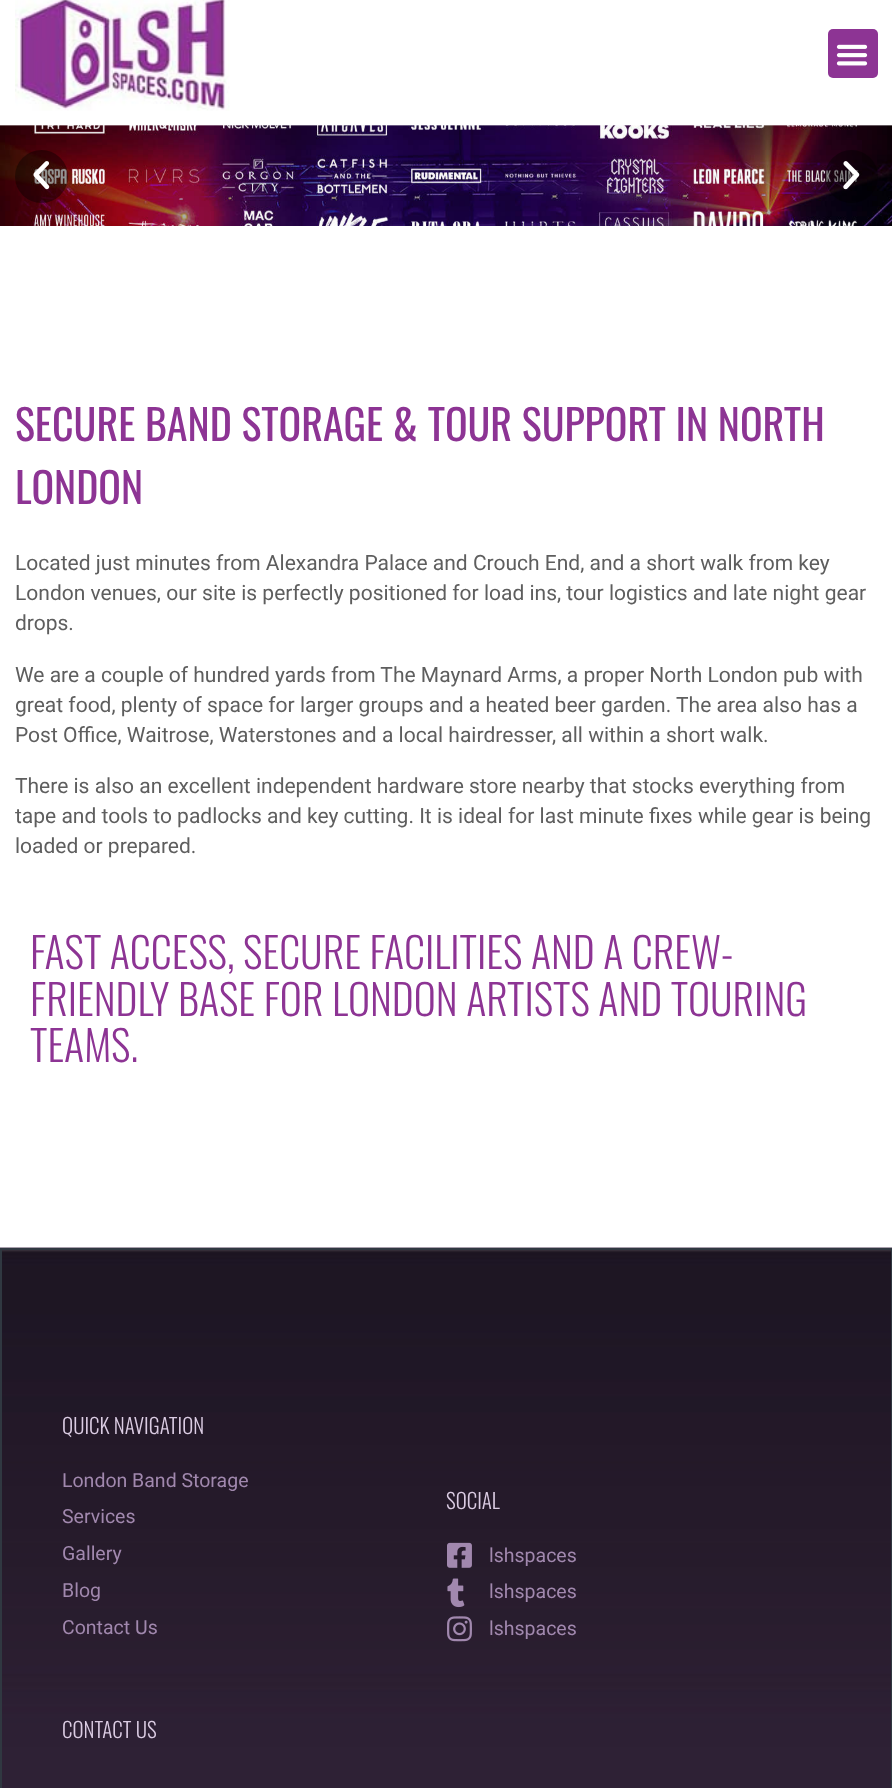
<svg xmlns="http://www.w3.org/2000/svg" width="892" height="1788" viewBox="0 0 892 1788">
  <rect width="100%" height="100%" fill="#ffffff"/>
  <image x="15" y="0" width="215" height="111" href="img1.png"/>
  <rect x="828" y="29" width="50" height="49" rx="5" fill="#8d3494"/>
  <image x="836" y="44" width="32" height="22" href="img2.png"/>
  <image x="0" y="125" width="892" height="101" href="img3.png"/>
  <circle cx="41.5" cy="176.5" r="26.5" fill="#000000" fill-opacity="0.4"/>
  <image x="33" y="161" width="17" height="29" href="img4.png"/>
  <circle cx="851.5" cy="176.5" r="26.5" fill="#000000" fill-opacity="0.4"/>
  <image x="843" y="161" width="17" height="29" href="img5.png"/>
  <text x="15" y="441" font-family="Oswald" font-size="42" fill="#8d3494">SECURE BAND STORAGE &amp; TOUR SUPPORT IN NORTH</text>
  <text x="15" y="504" font-family="Oswald" font-size="42" fill="#8d3494">LONDON</text>
  <text x="15" y="570" font-family="Roboto" font-size="21" fill="#5e5e5e">Located just minutes from Alexandra Palace and Crouch End, and a short walk from key</text>
  <text x="15" y="600" font-family="Roboto" font-size="21" fill="#5e5e5e">London venues, our site is perfectly positioned for load ins, tour logistics and late night gear</text>
  <text x="15" y="630" font-family="Roboto" font-size="21" fill="#5e5e5e">drops.</text>
  <text x="15" y="682" font-family="Roboto" font-size="21" fill="#5e5e5e">We are a couple of hundred yards from The Maynard Arms, a proper North London pub with</text>
  <text x="15" y="712" font-family="Roboto" font-size="21" fill="#5e5e5e">great food, plenty of space for larger groups and a heated beer garden. The area also has a</text>
  <text x="15" y="742" font-family="Roboto" font-size="21" fill="#5e5e5e">Post Office, Waitrose, Waterstones and a local hairdresser, all within a short walk.</text>
  <text x="15" y="793" font-family="Roboto" font-size="21" fill="#5e5e5e">There is also an excellent independent hardware store nearby that stocks everything from</text>
  <text x="15" y="823" font-family="Roboto" font-size="21" fill="#5e5e5e">tape and tools to padlocks and key cutting. It is ideal for last minute fixes while gear is being</text>
  <text x="15" y="853" font-family="Roboto" font-size="21" fill="#5e5e5e">loaded or prepared.</text>
  <text x="30" y="969" font-family="Oswald" font-size="42" font-weight="300" fill="#8d3494">FAST ACCESS, SECURE FACILITIES AND A CREW-</text>
  <text x="30" y="1016" font-family="Oswald" font-size="42" font-weight="300" fill="#8d3494">FRIENDLY BASE FOR LONDON ARTISTS AND TOURING</text>
  <text x="30" y="1062" font-family="Oswald" font-size="42" font-weight="300" fill="#8d3494">TEAMS.</text>
  <image x="0" y="1247" width="892" height="541" href="img6.png"/>
  <rect x="1" y="1249" width="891" height="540" fill="none" stroke="#303841" stroke-width="2"/>
  <text x="62" y="1434" font-family="Oswald" font-size="21" font-weight="300" fill="#dbcce3">QUICK NAVIGATION</text>
  <text x="62" y="1487" font-family="Roboto" font-size="19.5" fill="#a188ae">London Band Storage</text>
  <text x="62" y="1523" font-family="Roboto" font-size="19.5" fill="#a188ae">Services</text>
  <text x="62" y="1560" font-family="Roboto" font-size="19.5" fill="#a188ae">Gallery</text>
  <text x="62" y="1597" font-family="Roboto" font-size="19.5" fill="#a188ae">Blog</text>
  <text x="62" y="1634" font-family="Roboto" font-size="19.5" fill="#a188ae">Contact Us</text>
  <text x="446" y="1509" font-family="Oswald" font-size="21" font-weight="300" fill="#dbcce3">SOCIAL</text>
  <image x="447" y="1542" width="25" height="26" href="img7.png"/>
  <text x="489" y="1562" font-family="Roboto" font-size="19.5" fill="#a188ae">lshspaces</text>
  <image x="447" y="1578" width="18" height="30" href="img8.png"/>
  <text x="489" y="1598" font-family="Roboto" font-size="19.5" fill="#a188ae">lshspaces</text>
  <image x="447" y="1616" width="25" height="26" href="img9.png"/>
  <text x="489" y="1635" font-family="Roboto" font-size="19.5" fill="#a188ae">lshspaces</text>
  <text x="62" y="1738" font-family="Oswald" font-size="21" font-weight="300" fill="#dbcce3">CONTACT US</text>
</svg>
